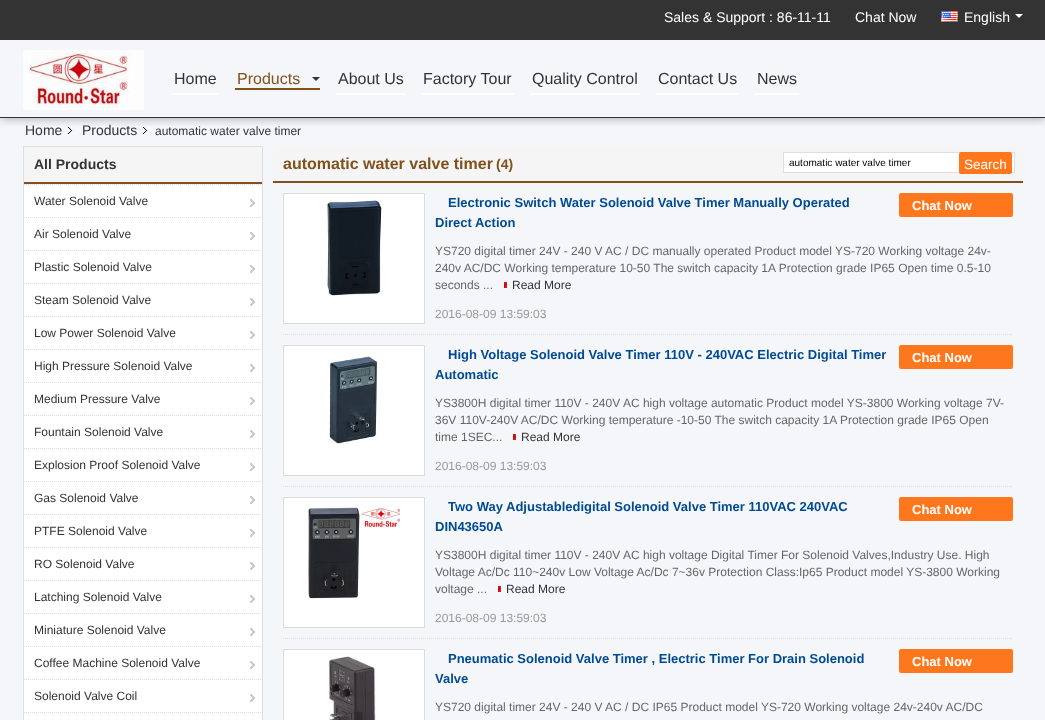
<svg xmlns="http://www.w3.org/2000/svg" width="1045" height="720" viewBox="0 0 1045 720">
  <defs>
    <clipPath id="clip1"><rect x="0" y="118" width="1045" height="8"/></clipPath>
    <filter id="blur1" x="-50%" y="-200%" width="200%" height="500%"><feGaussianBlur stdDeviation="5"/></filter>
  </defs>
  <rect width="100%" height="100%" fill="#f4f6f9"/>
  <g clip-path="url(#clip1)">
    <rect x="1" y="1" width="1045" height="118" fill="#000000" fill-opacity="0.3" filter="url(#blur1)"/>
  </g>
  <rect x="0" y="117" width="1045" height="1" fill="#333333"/>
  <rect x="0" y="0" width="1045" height="40" fill="#333333"/>
  <text x="664" y="22" font-family="Liberation Sans" font-size="14" fill="#ffffff">Sales &amp; Support : 86-11-11</text>
  <text x="855" y="22" font-family="Liberation Sans" font-size="14" fill="#ffffff">Chat Now</text>
  <image x="941" y="11" width="17" height="11" href="img1.png"/>
  <text x="964" y="22" font-family="Liberation Sans" font-size="14" fill="#ffffff">English</text>
  <path d="M1015 14H1023L1019 18Z" fill="#ffffff"/>
  <image x="23" y="50" width="121" height="60" href="img2.png"/>
  <rect x="172" y="93" width="47" height="2" fill="#ffffff"/>
  <text x="174" y="84" font-family="Liberation Sans" font-size="16" fill="#333333">Home</text>
  <rect x="235" y="88" width="85" height="2" fill="#81511c"/>
  <text x="237" y="84" font-family="Liberation Sans" font-size="16" fill="#81511c">Products</text>
  <path d="M312 77H320L316 81Z" fill="#333333"/>
  <rect x="336" y="93" width="69" height="2" fill="#ffffff"/>
  <text x="338" y="84" font-family="Liberation Sans" font-size="16" fill="#333333">About Us</text>
  <rect x="421" y="93" width="93" height="2" fill="#ffffff"/>
  <text x="423" y="84" font-family="Liberation Sans" font-size="16" fill="#333333">Factory Tour</text>
  <rect x="530" y="93" width="110" height="2" fill="#ffffff"/>
  <text x="532" y="84" font-family="Liberation Sans" font-size="16" fill="#333333">Quality Control</text>
  <rect x="656" y="93" width="83" height="2" fill="#ffffff"/>
  <text x="658" y="84" font-family="Liberation Sans" font-size="16" fill="#333333">Contact Us</text>
  <rect x="755" y="93" width="44" height="2" fill="#ffffff"/>
  <text x="757" y="84" font-family="Liberation Sans" font-size="16" fill="#333333">News</text>
  <image x="68" y="127" width="5" height="7" href="img3.png"/>
  <text x="25" y="135" font-family="Liberation Sans" font-size="14" fill="#333333">Home</text>
  <image x="143" y="127" width="5" height="7" href="img3.png"/>
  <text x="82" y="135" font-family="Liberation Sans" font-size="14" fill="#333333">Products</text>
  <text x="155" y="135" font-family="Liberation Sans" font-size="12" fill="#333333">automatic water valve timer</text>
  <rect x="24" y="184" width="238" height="536" fill="#ffffff"/>
  <rect x="23.5" y="146.5" width="239" height="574" fill="none" stroke="#dedede"/>
  <rect x="24" y="147" width="238" height="35" fill="#f5f5f5"/>
  <rect x="24" y="182" width="238" height="2" fill="#81511c"/>
  <text x="34" y="169" font-family="Liberation Sans" font-size="14" font-weight="bold" fill="#333333">All Products</text>
  <image x="250" y="199" width="5" height="8" href="img4.png"/>
  <path d="M24 184.5H262" fill="none" stroke="#dedede" stroke-dasharray="1 1"/>
  <text x="34" y="205" font-family="Liberation Sans" font-size="12" fill="#333333">Water Solenoid Valve</text>
  <image x="250" y="232" width="5" height="8" href="img4.png"/>
  <path d="M24 217.5H262" fill="none" stroke="#dedede" stroke-dasharray="1 1"/>
  <text x="34" y="238" font-family="Liberation Sans" font-size="12" fill="#333333">Air Solenoid Valve</text>
  <image x="250" y="265" width="5" height="8" href="img4.png"/>
  <path d="M24 250.5H262" fill="none" stroke="#dedede" stroke-dasharray="1 1"/>
  <text x="34" y="271" font-family="Liberation Sans" font-size="12" fill="#333333">Plastic Solenoid Valve</text>
  <image x="250" y="298" width="5" height="8" href="img4.png"/>
  <path d="M24 283.5H262" fill="none" stroke="#dedede" stroke-dasharray="1 1"/>
  <text x="34" y="304" font-family="Liberation Sans" font-size="12" fill="#333333">Steam Solenoid Valve</text>
  <image x="250" y="331" width="5" height="8" href="img4.png"/>
  <path d="M24 316.5H262" fill="none" stroke="#dedede" stroke-dasharray="1 1"/>
  <text x="34" y="337" font-family="Liberation Sans" font-size="12" fill="#333333">Low Power Solenoid Valve</text>
  <image x="250" y="364" width="5" height="8" href="img4.png"/>
  <path d="M24 349.5H262" fill="none" stroke="#dedede" stroke-dasharray="1 1"/>
  <text x="34" y="370" font-family="Liberation Sans" font-size="12" fill="#333333">High Pressure Solenoid Valve</text>
  <image x="250" y="397" width="5" height="8" href="img4.png"/>
  <path d="M24 382.5H262" fill="none" stroke="#dedede" stroke-dasharray="1 1"/>
  <text x="34" y="403" font-family="Liberation Sans" font-size="12" fill="#333333">Medium Pressure Valve</text>
  <image x="250" y="430" width="5" height="8" href="img4.png"/>
  <path d="M24 415.5H262" fill="none" stroke="#dedede" stroke-dasharray="1 1"/>
  <text x="34" y="436" font-family="Liberation Sans" font-size="12" fill="#333333">Fountain Solenoid Valve</text>
  <image x="250" y="463" width="5" height="8" href="img4.png"/>
  <path d="M24 448.5H262" fill="none" stroke="#dedede" stroke-dasharray="1 1"/>
  <text x="34" y="469" font-family="Liberation Sans" font-size="12" fill="#333333">Explosion Proof Solenoid Valve</text>
  <image x="250" y="496" width="5" height="8" href="img4.png"/>
  <path d="M24 481.5H262" fill="none" stroke="#dedede" stroke-dasharray="1 1"/>
  <text x="34" y="502" font-family="Liberation Sans" font-size="12" fill="#333333">Gas Solenoid Valve</text>
  <image x="250" y="529" width="5" height="8" href="img4.png"/>
  <path d="M24 514.5H262" fill="none" stroke="#dedede" stroke-dasharray="1 1"/>
  <text x="34" y="535" font-family="Liberation Sans" font-size="12" fill="#333333">PTFE Solenoid Valve</text>
  <image x="250" y="562" width="5" height="8" href="img4.png"/>
  <path d="M24 547.5H262" fill="none" stroke="#dedede" stroke-dasharray="1 1"/>
  <text x="34" y="568" font-family="Liberation Sans" font-size="12" fill="#333333">RO Solenoid Valve</text>
  <image x="250" y="595" width="5" height="8" href="img4.png"/>
  <path d="M24 580.5H262" fill="none" stroke="#dedede" stroke-dasharray="1 1"/>
  <text x="34" y="601" font-family="Liberation Sans" font-size="12" fill="#333333">Latching Solenoid Valve</text>
  <image x="250" y="628" width="5" height="8" href="img4.png"/>
  <path d="M24 613.5H262" fill="none" stroke="#dedede" stroke-dasharray="1 1"/>
  <text x="34" y="634" font-family="Liberation Sans" font-size="12" fill="#333333">Miniature Solenoid Valve</text>
  <image x="250" y="661" width="5" height="8" href="img4.png"/>
  <path d="M24 646.5H262" fill="none" stroke="#dedede" stroke-dasharray="1 1"/>
  <text x="34" y="667" font-family="Liberation Sans" font-size="12" fill="#333333">Coffee Machine Solenoid Valve</text>
  <image x="250" y="694" width="5" height="8" href="img4.png"/>
  <path d="M24 679.5H262" fill="none" stroke="#dedede" stroke-dasharray="1 1"/>
  <text x="34" y="700" font-family="Liberation Sans" font-size="12" fill="#333333">Solenoid Valve Coil</text>
  <path d="M24 712.5H262" fill="none" stroke="#dedede" stroke-dasharray="1 1"/>
  <rect x="273" y="146" width="750" height="35" fill="#f5f5f5"/>
  <rect x="273" y="181" width="750" height="2" fill="#81511c"/>
  <text x="283" y="169" font-family="Liberation Sans" font-size="16" font-weight="bold" fill="#81511c">automatic water valve timer</text>
  <text x="496" y="169" font-family="Liberation Sans" font-size="14" font-weight="bold" fill="#81511c">(4)</text>
  <rect x="783.5" y="152.5" width="231" height="20" fill="#ffffff" stroke="#dedede"/>
  <text x="789" y="166" font-family="Liberation Sans" font-size="10" fill="#000000">automatic water valve timer</text>
  <rect x="959" y="152" width="53" height="22" rx="2" fill="#ff771c"/>
  <text x="964" y="169" font-family="Liberation Sans" font-size="13.5" fill="#ffffff">Search</text>
  <path d="M283 334.5H1013" fill="none" stroke="#dcdcdc" stroke-dasharray="1 1"/>
  <rect x="283.5" y="193.5" width="141" height="130" fill="#ffffff" stroke="#dcdcdc"/>
  <image x="326" y="200" width="56" height="96" href="img5.png"/>
  <text x="448" y="207" font-family="Liberation Sans" font-size="13" font-weight="bold" fill="#004b91">Electronic Switch Water Solenoid Valve Timer Manually Operated</text>
  <rect x="899" y="193" width="114" height="24" rx="2" fill="#ff771c"/>
  <text x="912" y="210" font-family="Liberation Sans" font-size="13" font-weight="bold" fill="#ffffff">Chat Now</text>
  <text x="435" y="227" font-family="Liberation Sans" font-size="13" font-weight="bold" fill="#004b91">Direct Action</text>
  <text x="435" y="255" font-family="Liberation Sans" font-size="12" fill="#666666">YS720 digital timer 24V - 240 V AC / DC manually operated Product model YS-720 Working voltage 24v-</text>
  <text x="435" y="272" font-family="Liberation Sans" font-size="12" fill="#666666">240v AC/DC Working temperature 10-50 The switch capacity 1A Protection grade IP65 Open time 0.5-10</text>
  <text x="435" y="289" font-family="Liberation Sans" font-size="12" fill="#666666">seconds ...</text>
  <rect x="504" y="282" width="3" height="6" fill="#c9242b"/>
  <path d="M504 288V282L507 285Z" fill="#db0505"/>
  <text x="512" y="289" font-family="Liberation Sans" font-size="12" fill="#333333">Read More</text>
  <text x="435" y="318" font-family="Liberation Sans" font-size="12" fill="#999999">2016-08-09 13:59:03</text>
  <path d="M283 486.5H1013" fill="none" stroke="#dcdcdc" stroke-dasharray="1 1"/>
  <rect x="283.5" y="345.5" width="141" height="130" fill="#ffffff" stroke="#dcdcdc"/>
  <image x="329" y="356" width="49" height="89" href="img6.png"/>
  <text x="448" y="359" font-family="Liberation Sans" font-size="13" font-weight="bold" fill="#004b91">High Voltage Solenoid Valve Timer 110V - 240VAC Electric Digital Timer</text>
  <rect x="899" y="345" width="114" height="24" rx="2" fill="#ff771c"/>
  <text x="912" y="362" font-family="Liberation Sans" font-size="13" font-weight="bold" fill="#ffffff">Chat Now</text>
  <text x="435" y="379" font-family="Liberation Sans" font-size="13" font-weight="bold" fill="#004b91">Automatic</text>
  <text x="435" y="407" font-family="Liberation Sans" font-size="12" fill="#666666">YS3800H digital timer 110V - 240V AC high voltage automatic Product model YS-3800 Working voltage 7V-</text>
  <text x="435" y="424" font-family="Liberation Sans" font-size="12" fill="#666666">36V 110V-240V AC/DC Working temperature -10-50 The switch capacity 1A Protection grade IP65 Open</text>
  <text x="435" y="441" font-family="Liberation Sans" font-size="12" fill="#666666">time 1SEC...</text>
  <rect x="513" y="434" width="3" height="6" fill="#c9242b"/>
  <path d="M513 440V434L516 437Z" fill="#db0505"/>
  <text x="521" y="441" font-family="Liberation Sans" font-size="12" fill="#333333">Read More</text>
  <text x="435" y="470" font-family="Liberation Sans" font-size="12" fill="#999999">2016-08-09 13:59:03</text>
  <path d="M283 638.5H1013" fill="none" stroke="#dcdcdc" stroke-dasharray="1 1"/>
  <rect x="283.5" y="497.5" width="141" height="130" fill="#ffffff" stroke="#dcdcdc"/>
  <image x="308" y="507" width="92" height="92" href="img7.png"/>
  <text x="448" y="511" font-family="Liberation Sans" font-size="13" font-weight="bold" fill="#004b91">Two Way Adjustabledigital Solenoid Valve Timer 110VAC 240VAC</text>
  <rect x="899" y="497" width="114" height="24" rx="2" fill="#ff771c"/>
  <text x="912" y="514" font-family="Liberation Sans" font-size="13" font-weight="bold" fill="#ffffff">Chat Now</text>
  <text x="435" y="531" font-family="Liberation Sans" font-size="13" font-weight="bold" fill="#004b91">DIN43650A</text>
  <text x="435" y="559" font-family="Liberation Sans" font-size="12" fill="#666666">YS3800H digital timer 110V - 240V AC high voltage Digital Timer For Solenoid Valves,Industry Use. High</text>
  <text x="435" y="576" font-family="Liberation Sans" font-size="12" fill="#666666">Voltage Ac/Dc 110~240v Low Voltage Ac/Dc 7~36v Protection Class:Ip65 Product model YS-3800 Working</text>
  <text x="435" y="593" font-family="Liberation Sans" font-size="12" fill="#666666">voltage ...</text>
  <rect x="498" y="586" width="3" height="6" fill="#c9242b"/>
  <path d="M498 592V586L501 589Z" fill="#db0505"/>
  <text x="506" y="593" font-family="Liberation Sans" font-size="12" fill="#333333">Read More</text>
  <text x="435" y="622" font-family="Liberation Sans" font-size="12" fill="#999999">2016-08-09 13:59:03</text>
  <rect x="283.5" y="649.5" width="141" height="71" fill="#ffffff" stroke="#dcdcdc"/>
  <image x="328" y="656" width="48" height="64" href="img8.png"/>
  <text x="448" y="663" font-family="Liberation Sans" font-size="13" font-weight="bold" fill="#004b91">Pneumatic Solenoid Valve Timer , Electric Timer For Drain Solenoid</text>
  <rect x="899" y="649" width="114" height="24" rx="2" fill="#ff771c"/>
  <text x="912" y="666" font-family="Liberation Sans" font-size="13" font-weight="bold" fill="#ffffff">Chat Now</text>
  <text x="435" y="683" font-family="Liberation Sans" font-size="13" font-weight="bold" fill="#004b91">Valve</text>
  <text x="435" y="711" font-family="Liberation Sans" font-size="12" fill="#666666">YS720 digital timer 24V - 240 V AC / DC IP65 Product model YS-720 Working voltage 24v-240v AC/DC</text>
</svg>
